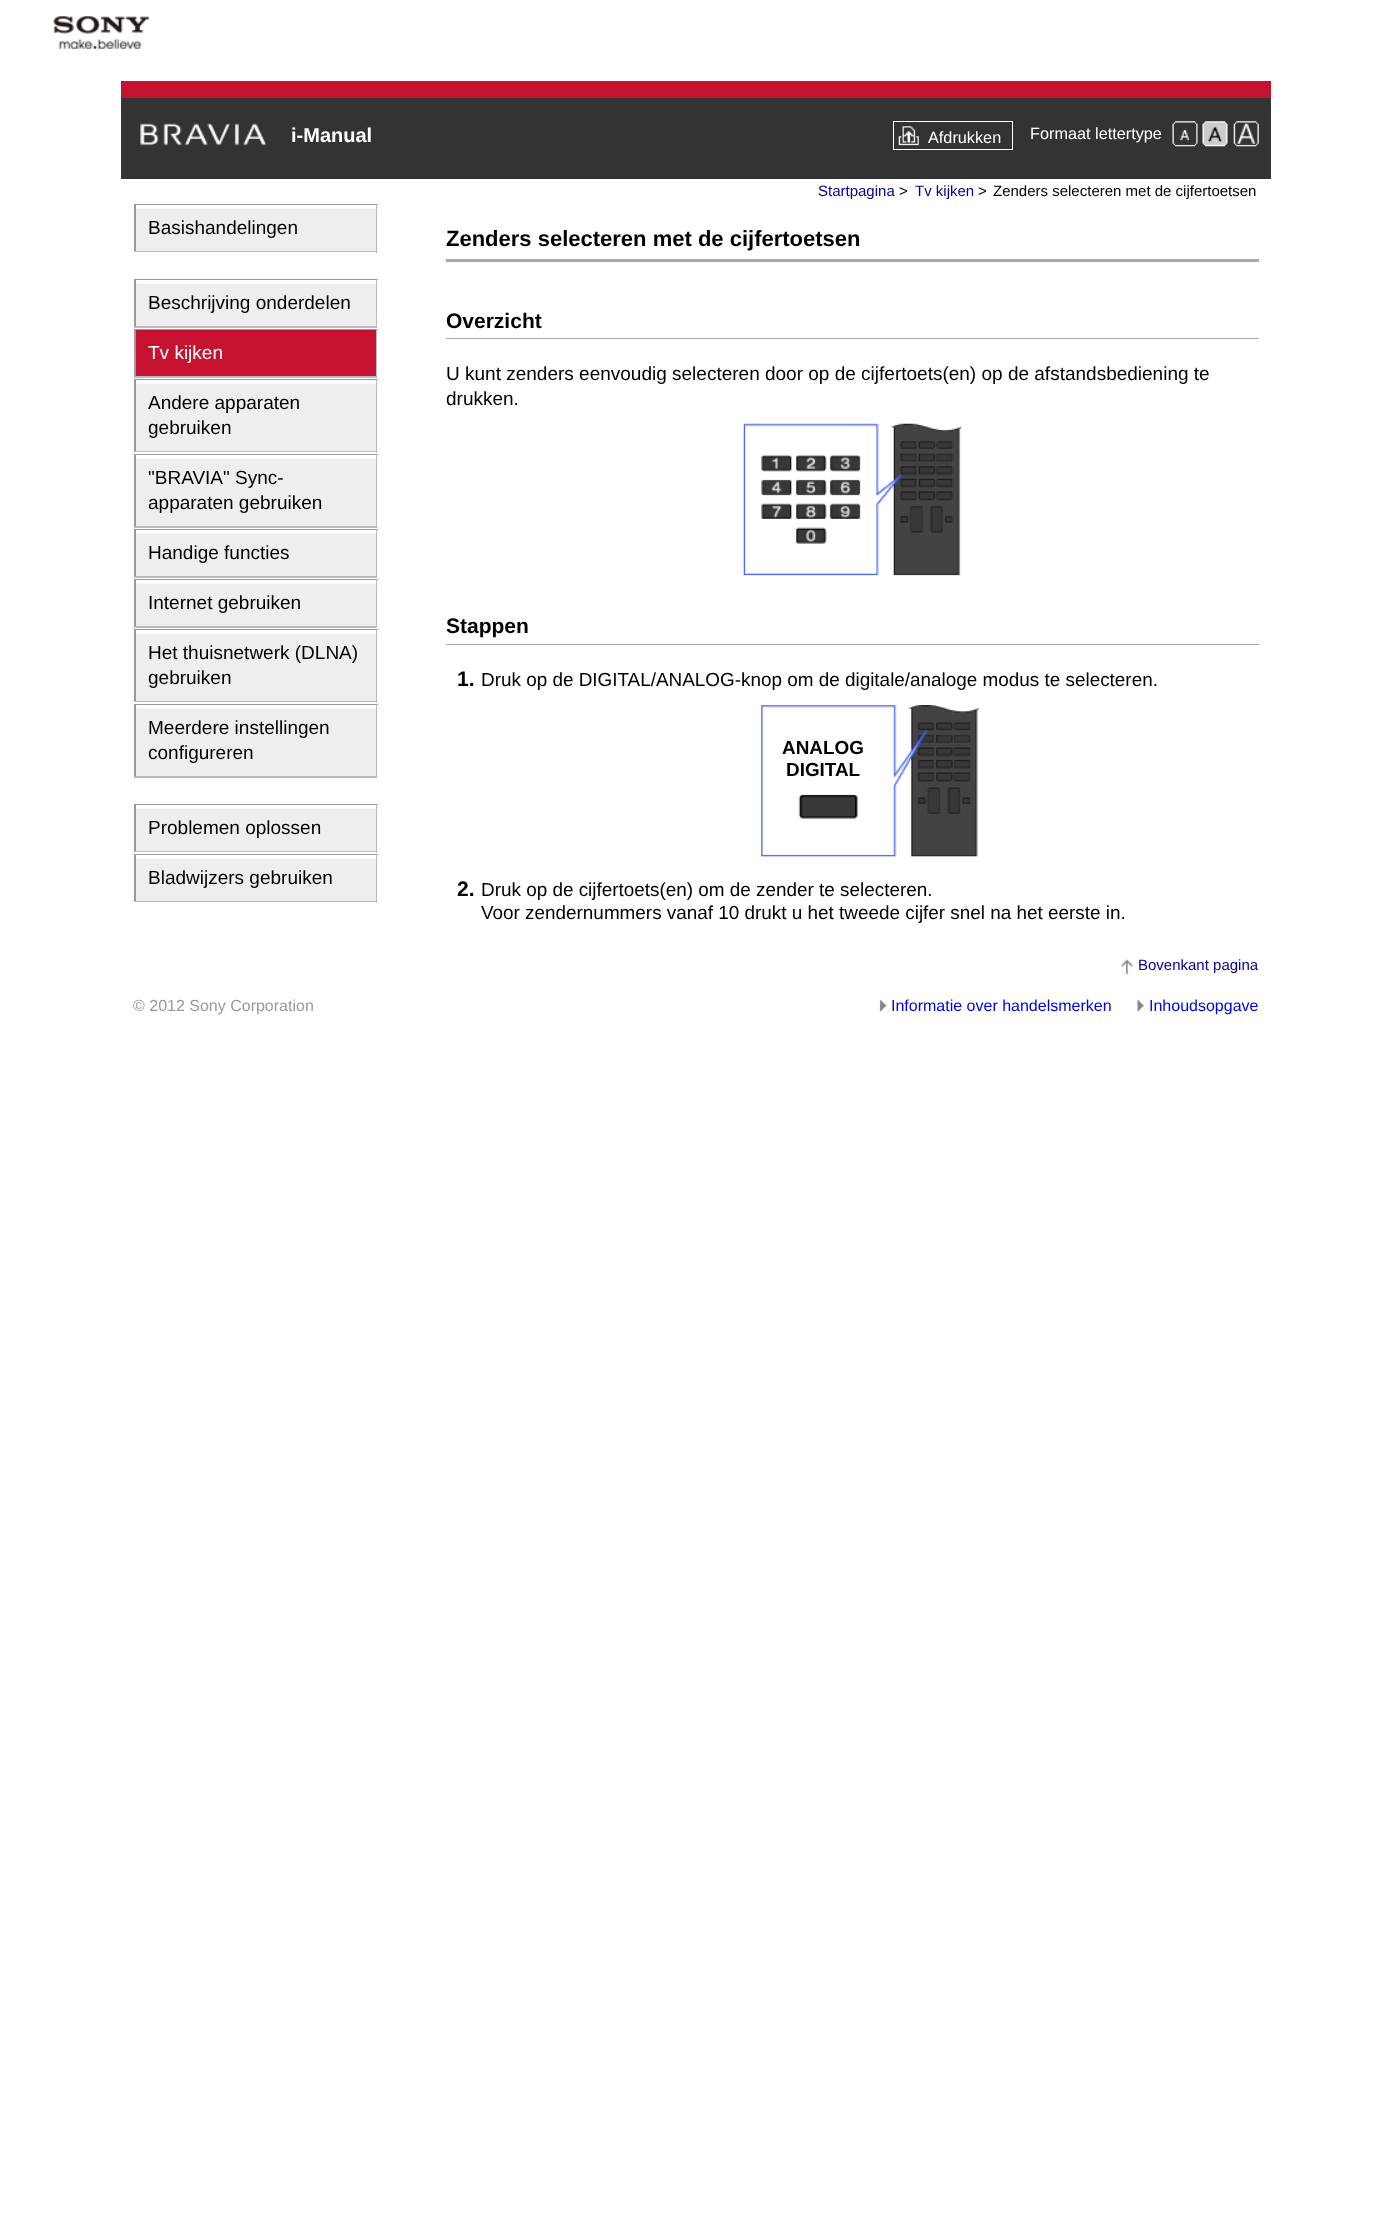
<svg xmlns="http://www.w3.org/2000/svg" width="1391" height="2240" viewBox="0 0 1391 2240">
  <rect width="100%" height="100%" fill="#ffffff"/>
  <image x="53" y="16" width="96" height="33" href="img1.png"/>
  <rect x="121" y="98" width="1150" height="81" fill="#333333"/>
  <rect x="121" y="81" width="1150" height="17" fill="#c41230"/>
  <image x="140" y="123" width="127" height="23" href="img2.png"/>
  <text x="291" y="142" font-family="Liberation Sans" font-size="20" font-weight="bold" fill="#ffffff">i-Manual</text>
  <image x="898" y="126" width="21" height="20" href="img3.png"/>
  <rect x="893.5" y="121.5" width="119" height="28" fill="none" stroke="#ffffff"/>
  <text x="928" y="143" font-family="Liberation Sans" font-size="16.25" fill="#ffffff">Afdrukken</text>
  <text x="1030" y="139" font-family="Liberation Sans" font-size="16.25" fill="#ffffff">Formaat lettertype</text>
  <image x="1172" y="121" width="26" height="26" href="img4.png"/>
  <image x="1202" y="121" width="26" height="26" href="img5.png"/>
  <image x="1233" y="121" width="26" height="26" href="img6.png"/>
  <rect x="136" y="205" width="240" height="46" fill="#eeeeee"/>
  <image x="136" y="205" width="242" height="5" href="img7.png"/>
  <rect x="134" y="204" width="244" height="1" fill="#999999"/>
  <rect x="376" y="204" width="1" height="49" fill="#bbbbbb"/>
  <path d="M378 252H134L136 251H376Z" fill="#bbbbbb"/>
  <path d="M134 252V204L136 205V251Z" fill="#999999"/>
  <text x="148" y="234" font-family="Liberation Sans" font-size="19" fill="#000000">Basishandelingen</text>
  <rect x="136" y="280" width="240" height="46" fill="#eeeeee"/>
  <image x="136" y="280" width="242" height="5" href="img7.png"/>
  <rect x="134" y="279" width="244" height="1" fill="#999999"/>
  <rect x="376" y="279" width="1" height="49" fill="#bbbbbb"/>
  <path d="M378 328H134L136 326H376Z" fill="#bbbbbb"/>
  <path d="M134 328V279L136 280V326Z" fill="#999999"/>
  <text x="148" y="309" font-family="Liberation Sans" font-size="19" fill="#000000">Beschrijving onderdelen</text>
  <image x="377" y="330" width="1" height="5" href="img8.png"/>
  <rect x="134" y="329" width="244" height="1" fill="#999999"/>
  <rect x="376" y="329" width="1" height="49" fill="#bbbbbb"/>
  <path d="M378 378H134L136 376H376Z" fill="#bbbbbb"/>
  <path d="M134 378V329L136 330V376Z" fill="#999999"/>
  <rect x="136" y="330" width="240" height="46" fill="#c41230"/>
  <text x="148" y="359" font-family="Liberation Sans" font-size="19" fill="#ffffff">Tv kijken</text>
  <rect x="136" y="380" width="240" height="71" fill="#eeeeee"/>
  <image x="136" y="380" width="242" height="5" href="img7.png"/>
  <rect x="134" y="379" width="244" height="1" fill="#999999"/>
  <rect x="376" y="379" width="1" height="74" fill="#bbbbbb"/>
  <path d="M378 452H134L136 451H376Z" fill="#bbbbbb"/>
  <path d="M134 452V379L136 380V451Z" fill="#999999"/>
  <text x="148" y="409" font-family="Liberation Sans" font-size="19" fill="#000000">Andere apparaten</text>
  <text x="148" y="434" font-family="Liberation Sans" font-size="19" fill="#000000">gebruiken</text>
  <rect x="136" y="455" width="240" height="71" fill="#eeeeee"/>
  <image x="136" y="455" width="242" height="5" href="img7.png"/>
  <rect x="134" y="454" width="244" height="1" fill="#999999"/>
  <rect x="376" y="454" width="1" height="74" fill="#bbbbbb"/>
  <path d="M378 528H134L136 526H376Z" fill="#bbbbbb"/>
  <path d="M134 528V454L136 455V526Z" fill="#999999"/>
  <text x="148" y="484" font-family="Liberation Sans" font-size="19" fill="#000000">"BRAVIA" Sync-</text>
  <text x="148" y="509" font-family="Liberation Sans" font-size="19" fill="#000000">apparaten gebruiken</text>
  <rect x="136" y="530" width="240" height="46" fill="#eeeeee"/>
  <image x="136" y="530" width="242" height="5" href="img7.png"/>
  <rect x="134" y="529" width="244" height="1" fill="#999999"/>
  <rect x="376" y="529" width="1" height="49" fill="#bbbbbb"/>
  <path d="M378 578H134L136 576H376Z" fill="#bbbbbb"/>
  <path d="M134 578V529L136 530V576Z" fill="#999999"/>
  <text x="148" y="559" font-family="Liberation Sans" font-size="19" fill="#000000">Handige functies</text>
  <rect x="136" y="580" width="240" height="46" fill="#eeeeee"/>
  <image x="136" y="580" width="242" height="5" href="img7.png"/>
  <rect x="134" y="579" width="244" height="1" fill="#999999"/>
  <rect x="376" y="579" width="1" height="49" fill="#bbbbbb"/>
  <path d="M378 628H134L136 626H376Z" fill="#bbbbbb"/>
  <path d="M134 628V579L136 580V626Z" fill="#999999"/>
  <text x="148" y="609" font-family="Liberation Sans" font-size="19" fill="#000000">Internet gebruiken</text>
  <rect x="136" y="630" width="240" height="71" fill="#eeeeee"/>
  <image x="136" y="630" width="242" height="5" href="img7.png"/>
  <rect x="134" y="629" width="244" height="1" fill="#999999"/>
  <rect x="376" y="629" width="1" height="74" fill="#bbbbbb"/>
  <path d="M378 702H134L136 701H376Z" fill="#bbbbbb"/>
  <path d="M134 702V629L136 630V701Z" fill="#999999"/>
  <text x="148" y="659" font-family="Liberation Sans" font-size="19" fill="#000000">Het thuisnetwerk (DLNA)</text>
  <text x="148" y="684" font-family="Liberation Sans" font-size="19" fill="#000000">gebruiken</text>
  <rect x="136" y="705" width="240" height="71" fill="#eeeeee"/>
  <image x="136" y="705" width="242" height="5" href="img7.png"/>
  <rect x="134" y="704" width="244" height="1" fill="#999999"/>
  <rect x="376" y="704" width="1" height="74" fill="#bbbbbb"/>
  <path d="M378 778H134L136 776H376Z" fill="#bbbbbb"/>
  <path d="M134 778V704L136 705V776Z" fill="#999999"/>
  <text x="148" y="734" font-family="Liberation Sans" font-size="19" fill="#000000">Meerdere instellingen</text>
  <text x="148" y="759" font-family="Liberation Sans" font-size="19" fill="#000000">configureren</text>
  <rect x="136" y="805" width="240" height="46" fill="#eeeeee"/>
  <image x="136" y="805" width="242" height="5" href="img7.png"/>
  <rect x="134" y="804" width="244" height="1" fill="#999999"/>
  <rect x="376" y="804" width="1" height="49" fill="#bbbbbb"/>
  <path d="M378 852H134L136 851H376Z" fill="#bbbbbb"/>
  <path d="M134 852V804L136 805V851Z" fill="#999999"/>
  <text x="148" y="834" font-family="Liberation Sans" font-size="19" fill="#000000">Problemen oplossen</text>
  <rect x="136" y="855" width="240" height="46" fill="#eeeeee"/>
  <image x="136" y="855" width="242" height="5" href="img7.png"/>
  <rect x="134" y="854" width="244" height="1" fill="#999999"/>
  <rect x="376" y="854" width="1" height="49" fill="#bbbbbb"/>
  <path d="M378 902H134L136 901H376Z" fill="#bbbbbb"/>
  <path d="M134 902V854L136 855V901Z" fill="#999999"/>
  <text x="148" y="884" font-family="Liberation Sans" font-size="19" fill="#000000">Bladwijzers gebruiken</text>
  <text x="818" y="196" font-family="Liberation Sans" font-size="15" fill="#000099">Startpagina</text>
  <text x="899" y="196" font-family="Liberation Sans" font-size="15" fill="#000000">&gt;</text>
  <text x="915" y="196" font-family="Liberation Sans" font-size="15" fill="#000099">Tv kijken</text>
  <text x="978" y="196" font-family="Liberation Sans" font-size="15" fill="#000000">&gt;</text>
  <text x="993" y="196" font-family="Liberation Sans" font-size="15" fill="#000000">Zenders selecteren met de cijfertoetsen</text>
  <rect x="446" y="259" width="813" height="3" fill="#aaaaaa"/>
  <text x="446" y="246" font-family="Liberation Sans" font-size="22" font-weight="bold" fill="#000000">Zenders selecteren met de cijfertoetsen</text>
  <rect x="446" y="338" width="813" height="1" fill="#aaaaaa"/>
  <text x="446" y="328" font-family="Liberation Sans" font-size="21" font-weight="bold" fill="#000000">Overzicht</text>
  <text x="446" y="380" font-family="Liberation Sans" font-size="19" fill="#000000">U kunt zenders eenvoudig selecteren door op de cijfertoets(en) op de afstandsbediening te</text>
  <text x="446" y="405" font-family="Liberation Sans" font-size="19" fill="#000000">drukken.</text>
  <image x="743" y="423" width="219" height="153" href="img9.png"/>
  <rect x="446" y="644" width="813" height="1" fill="#aaaaaa"/>
  <text x="446" y="633" font-family="Liberation Sans" font-size="21" font-weight="bold" fill="#000000">Stappen</text>
  <text x="457" y="686" font-family="Liberation Sans" font-size="21" font-weight="bold" fill="#000000">1.</text>
  <text x="481" y="686" font-family="Liberation Sans" font-size="18.9" fill="#000000">Druk op de DIGITAL/ANALOG-knop om de digitale/analoge modus te selecteren.</text>
  <image x="761" y="705" width="218" height="152" href="img10.png"/>
  <text x="782" y="754" font-family="Liberation Sans" font-size="18.9" font-weight="bold" fill="#000000">ANALOG</text>
  <text x="786" y="776" font-family="Liberation Sans" font-size="18.9" font-weight="bold" fill="#000000">DIGITAL</text>
  <text x="457" y="896" font-family="Liberation Sans" font-size="21" font-weight="bold" fill="#000000">2.</text>
  <text x="481" y="896" font-family="Liberation Sans" font-size="18.9" fill="#000000">Druk op de cijfertoets(en) om de zender te selecteren.</text>
  <text x="481" y="919" font-family="Liberation Sans" font-size="18.9" fill="#000000">Voor zendernummers vanaf 10 drukt u het tweede cijfer snel na het eerste in.</text>
  <image x="1120" y="959" width="13" height="16" href="img11.png"/>
  <text x="1138" y="970" font-family="Liberation Sans" font-size="15" fill="#000099">Bovenkant pagina</text>
  <text x="133" y="1011" font-family="Liberation Sans" font-size="16" fill="#999999">© 2012 Sony Corporation</text>
  <image x="879" y="999" width="8" height="13" href="img12.png"/>
  <text x="891" y="1011" font-family="Liberation Sans" font-size="16" fill="#0000ee">Informatie over handelsmerken</text>
  <image x="1137" y="999" width="7" height="13" href="img13.png"/>
  <text x="1149" y="1011" font-family="Liberation Sans" font-size="16" fill="#0000ee">Inhoudsopgave</text>
</svg>
